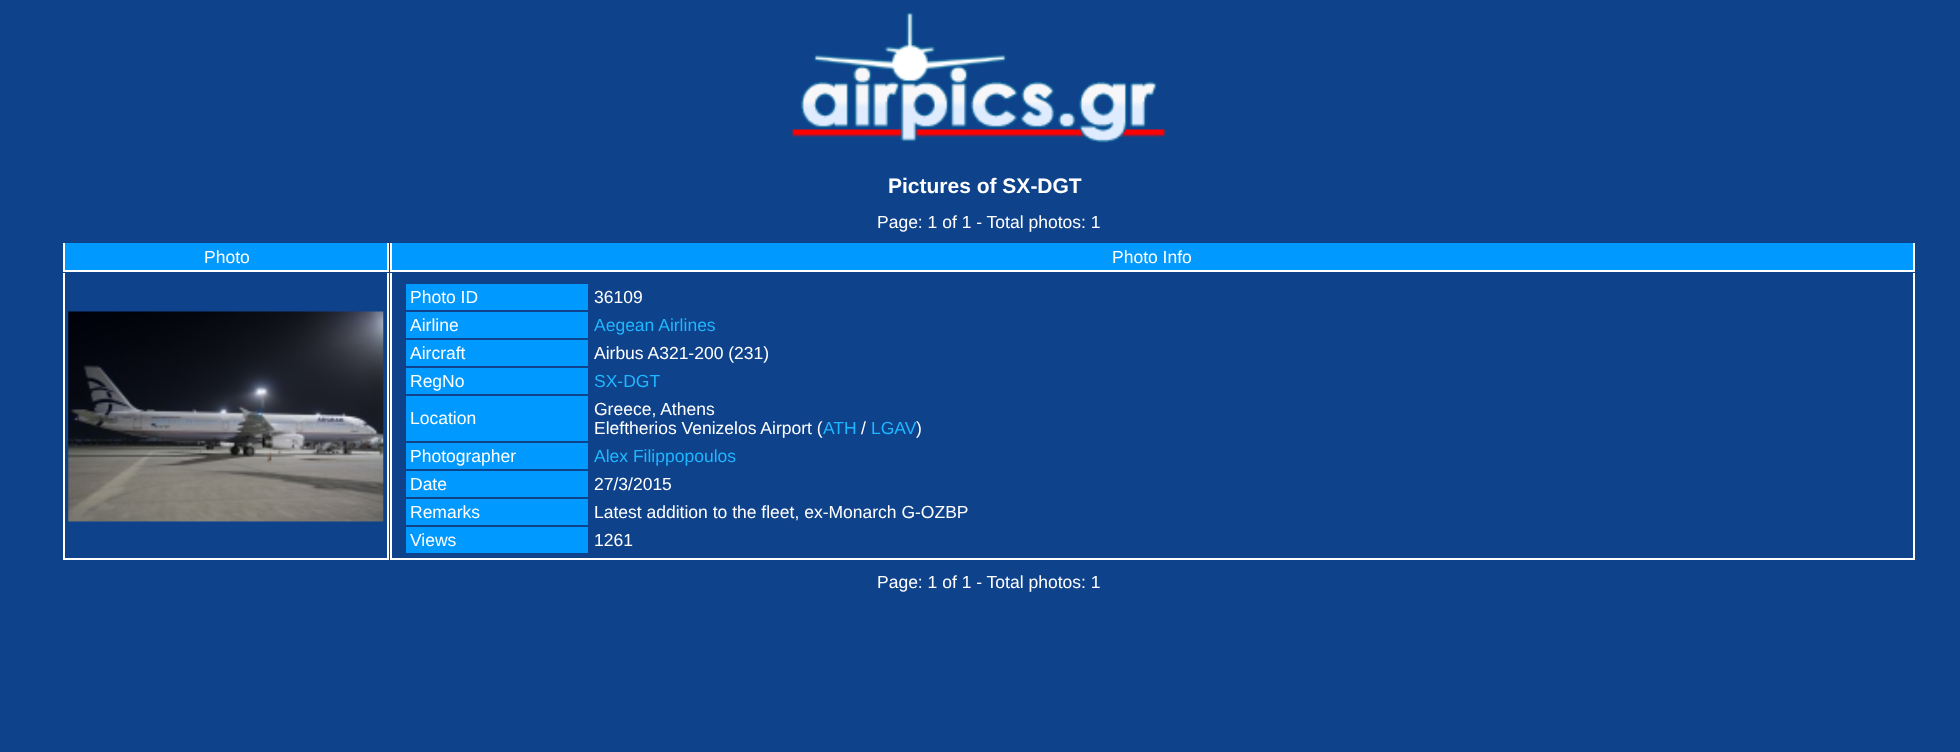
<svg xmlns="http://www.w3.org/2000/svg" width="1960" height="752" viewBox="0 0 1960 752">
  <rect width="100%" height="100%" fill="#0e428b"/>
  <image x="792" y="12" width="374" height="131" href="img1.png"/>
  <text x="888" y="193" font-family="Liberation Sans" font-size="21" font-weight="bold" fill="#ffffff">Pictures of SX-DGT</text>
  <text x="877" y="228" font-family="Liberation Sans" font-size="17.5" fill="#ffffff">Page: 1 of 1 - Total photos: 1</text>
  <rect x="65" y="243" width="322" height="27" fill="#0099ff"/>
  <rect x="387" y="243" width="2" height="28" fill="#ffffff"/>
  <rect x="63" y="270" width="326" height="2" fill="#ffffff"/>
  <rect x="63" y="243" width="2" height="28" fill="#ffffff"/>
  <text x="204" y="263" font-family="Liberation Sans" font-size="17.5" fill="#ffffff">Photo</text>
  <rect x="392" y="243" width="1521" height="27" fill="#0099ff"/>
  <rect x="1913" y="243" width="2" height="28" fill="#ffffff"/>
  <rect x="390" y="270" width="1525" height="2" fill="#ffffff"/>
  <rect x="390" y="243" width="2" height="28" fill="#ffffff"/>
  <text x="1112" y="263" font-family="Liberation Sans" font-size="17.5" fill="#ffffff">Photo Info</text>
  <rect x="387" y="273" width="2" height="287" fill="#ffffff"/>
  <rect x="63" y="558" width="326" height="2" fill="#ffffff"/>
  <rect x="63" y="273" width="2" height="287" fill="#ffffff"/>
  <image x="68" y="311" width="316" height="211" href="img2.png"/>
  <rect x="1913" y="273" width="2" height="287" fill="#ffffff"/>
  <rect x="390" y="558" width="1525" height="2" fill="#ffffff"/>
  <rect x="390" y="273" width="2" height="287" fill="#ffffff"/>
  <rect x="406" y="284" width="182" height="26" fill="#0099ff"/>
  <text x="410" y="303" font-family="Liberation Sans" font-size="17.5" fill="#ffffff">Photo ID</text>
  <text x="594" y="303" font-family="Liberation Sans" font-size="17.5" fill="#ffffff">36109</text>
  <rect x="406" y="312" width="182" height="26" fill="#0099ff"/>
  <text x="410" y="331" font-family="Liberation Sans" font-size="17.5" fill="#ffffff">Airline</text>
  <text x="594" y="331" font-family="Liberation Sans" font-size="17.5" fill="#1fb7ff">Aegean Airlines</text>
  <rect x="406" y="340" width="182" height="26" fill="#0099ff"/>
  <text x="410" y="359" font-family="Liberation Sans" font-size="17.5" fill="#ffffff">Aircraft</text>
  <text x="594" y="359" font-family="Liberation Sans" font-size="17.5" fill="#ffffff">Airbus A321-200 (231)</text>
  <rect x="406" y="368" width="182" height="26" fill="#0099ff"/>
  <text x="410" y="387" font-family="Liberation Sans" font-size="17.5" fill="#ffffff">RegNo</text>
  <text x="594" y="387" font-family="Liberation Sans" font-size="17.5" fill="#1fb7ff">SX-DGT</text>
  <rect x="406" y="396" width="182" height="45" fill="#0099ff"/>
  <text x="410" y="424" font-family="Liberation Sans" font-size="17.5" fill="#ffffff">Location</text>
  <text x="594" y="415" font-family="Liberation Sans" font-size="17.5" fill="#ffffff">Greece, Athens</text>
  <text x="594" y="434" font-family="Liberation Sans" font-size="17.5" fill="#ffffff">Eleftherios Venizelos Airport (</text>
  <text x="823" y="434" font-family="Liberation Sans" font-size="17.5" fill="#1fb7ff">ATH</text>
  <text x="861" y="434" font-family="Liberation Sans" font-size="17.5" fill="#ffffff">/</text>
  <text x="871" y="434" font-family="Liberation Sans" font-size="17.5" fill="#1fb7ff">LGAV</text>
  <text x="916" y="434" font-family="Liberation Sans" font-size="17.5" fill="#ffffff">)</text>
  <rect x="406" y="443" width="182" height="26" fill="#0099ff"/>
  <text x="410" y="462" font-family="Liberation Sans" font-size="17.5" fill="#ffffff">Photographer</text>
  <text x="594" y="462" font-family="Liberation Sans" font-size="17.5" fill="#1fb7ff">Alex Filippopoulos</text>
  <rect x="406" y="471" width="182" height="26" fill="#0099ff"/>
  <text x="410" y="490" font-family="Liberation Sans" font-size="17.5" fill="#ffffff">Date</text>
  <text x="594" y="490" font-family="Liberation Sans" font-size="17.5" fill="#ffffff">27/3/2015</text>
  <rect x="406" y="499" width="182" height="26" fill="#0099ff"/>
  <text x="410" y="518" font-family="Liberation Sans" font-size="17.5" fill="#ffffff">Remarks</text>
  <text x="594" y="518" font-family="Liberation Sans" font-size="17.5" fill="#ffffff">Latest addition to the fleet, ex-Monarch G-OZBP</text>
  <rect x="406" y="527" width="182" height="26" fill="#0099ff"/>
  <text x="410" y="546" font-family="Liberation Sans" font-size="17.5" fill="#ffffff">Views</text>
  <text x="594" y="546" font-family="Liberation Sans" font-size="17.5" fill="#ffffff">1261</text>
  <text x="877" y="588" font-family="Liberation Sans" font-size="17.5" fill="#ffffff">Page: 1 of 1 - Total photos: 1</text>
</svg>
